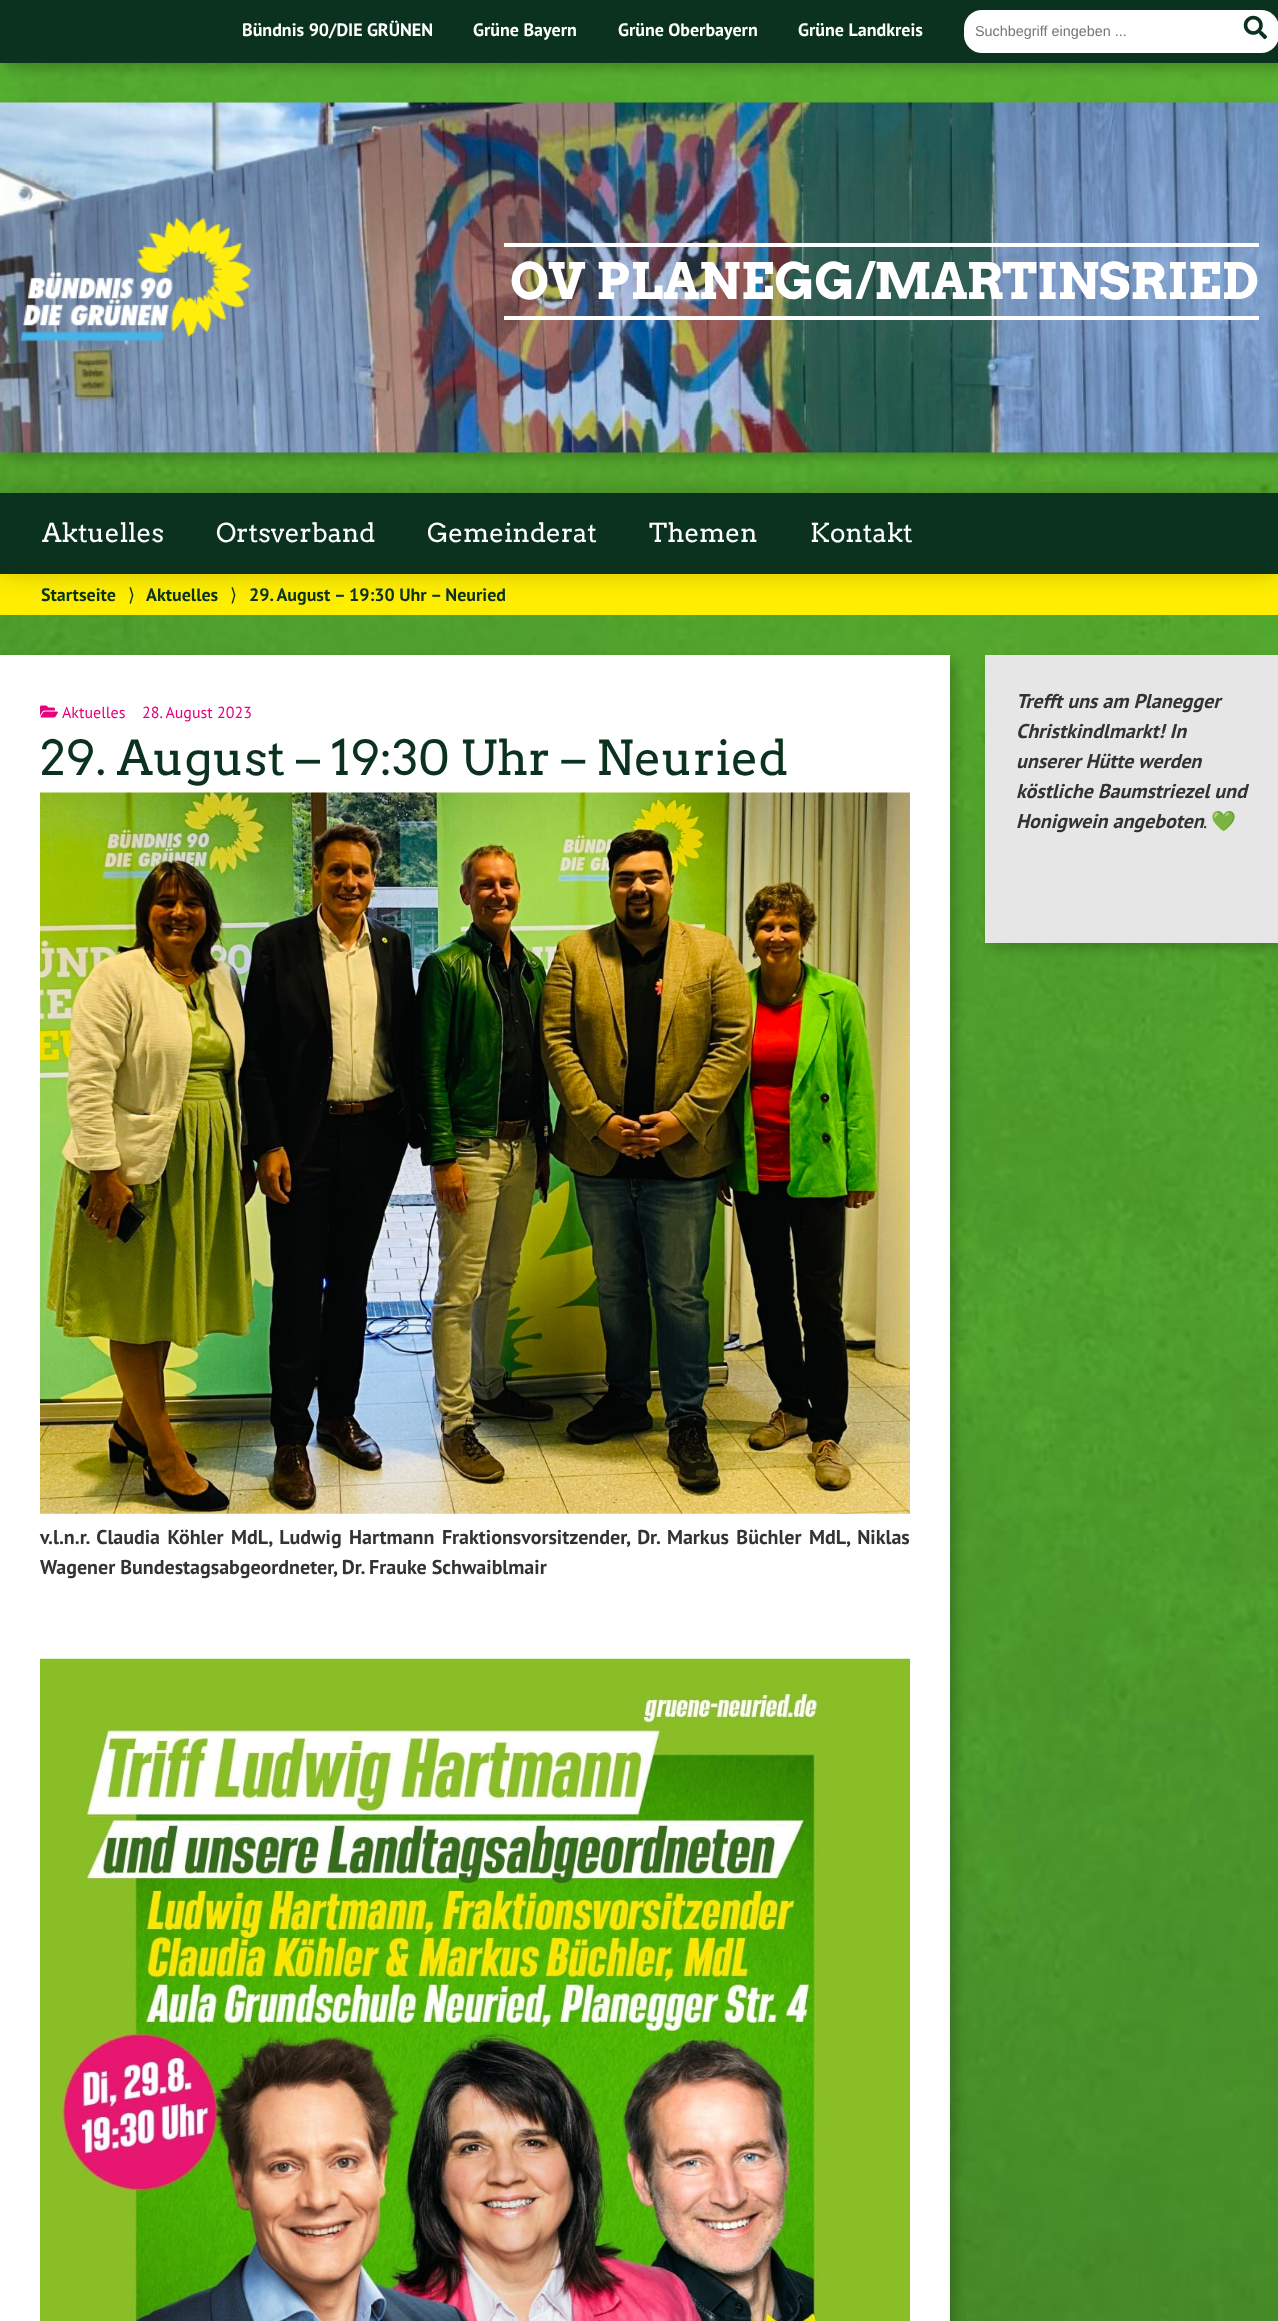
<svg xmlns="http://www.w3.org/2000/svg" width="1278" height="2321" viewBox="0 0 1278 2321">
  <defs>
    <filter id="blur1" x="-50%" y="-200%" width="200%" height="500%"><feGaussianBlur stdDeviation="6"/></filter>
    <filter id="blur2" x="-50%" y="-200%" width="200%" height="500%"><feGaussianBlur stdDeviation="12.5"/></filter>
  </defs>
  <rect width="100%" height="100%" fill="#ffffff"/>
  <image x="0" y="63" width="1278" height="2258" href="img1.png"/>
  <rect x="6" y="6" width="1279" height="63" fill="#000000" fill-opacity="0.2" filter="url(#blur1)"/>
  <rect x="0" y="0" width="1278" height="63" fill="#0a321e"/>
  <text x="242" y="36" font-family="PT Sans" font-size="18" font-weight="bold" fill="#ffffff">Bündnis 90/DIE GRÜNEN</text>
  <text x="473" y="36" font-family="PT Sans" font-size="18" font-weight="bold" fill="#ffffff">Grüne Bayern</text>
  <text x="618" y="36" font-family="PT Sans" font-size="18" font-weight="bold" fill="#ffffff">Grüne Oberbayern</text>
  <text x="798" y="36" font-family="PT Sans" font-size="18" font-weight="bold" fill="#ffffff">Grüne Landkreis</text>
  <rect x="964" y="10" width="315" height="43" rx="18" fill="#ffffff"/>
  <text x="975" y="36" font-family="Liberation Sans" font-size="14.4" fill="#757575">Suchbegriff eingeben ...</text>
  <image x="1243" y="15" width="25" height="25" href="img2.png"/>
  <rect x="6" y="109" width="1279" height="350" fill="#000000" fill-opacity="0.2" filter="url(#blur1)"/>
  <image x="0" y="102" width="1278" height="351" href="img3.png"/>
  <image x="20" y="217" width="232" height="125" href="img4.png"/>
  <rect x="504" y="243" width="755" height="4" fill="#ffffff"/>
  <rect x="504" y="316" width="755" height="4" fill="#ffffff"/>
  <text x="510" y="299" font-family="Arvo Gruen" font-size="50" fill="#ffffff">OV PLANEGG/MARTINSRIED</text>
  <rect x="0" y="574" width="1278" height="41" fill="#ffee00"/>
  <rect x="0" y="493" width="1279" height="81" fill="#000000" fill-opacity="0.2" filter="url(#blur2)"/>
  <rect x="0" y="493" width="1278" height="81" fill="#0a321e"/>
  <text x="42" y="542" font-family="Arvo" font-size="26" fill="#ffffff">Aktuelles</text>
  <text x="216" y="542" font-family="Arvo" font-size="26" fill="#ffffff">Ortsverband</text>
  <text x="427" y="542" font-family="Arvo" font-size="26" fill="#ffffff">Gemeinderat</text>
  <text x="649" y="542" font-family="Arvo" font-size="26" fill="#ffffff">Themen</text>
  <text x="810" y="542" font-family="Arvo" font-size="26" fill="#ffffff">Kontakt</text>
  <text x="41" y="601" font-family="PT Sans" font-size="18" font-weight="bold" fill="#0a321e">Startseite</text>
  <text x="128" y="601" font-family="DejaVu Sans" font-size="18" fill="#0a321e">⟩</text>
  <text x="146" y="601" font-family="PT Sans" font-size="18" font-weight="bold" fill="#0a321e">Aktuelles</text>
  <text x="230" y="601" font-family="DejaVu Sans" font-size="18" fill="#0a321e">⟩</text>
  <text x="249" y="601" font-family="PT Sans" font-size="18" font-weight="bold" fill="#0a321e">29. August – 19:30 Uhr – Neuried</text>
  <rect x="6" y="661" width="950" height="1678" fill="#000000" fill-opacity="0.2" filter="url(#blur1)"/>
  <rect x="0" y="655" width="950" height="1666" fill="#ffffff"/>
  <image x="40" y="705" width="18" height="13" href="img5.png"/>
  <text x="62" y="718" font-family="PT Sans" font-size="16" fill="#e6007e">Aktuelles</text>
  <text x="142" y="718" font-family="PT Sans" font-size="16" fill="#e6007e">28. August 2023</text>
  <text x="40" y="775" font-family="Arvo" font-size="48" fill="#0a321e">29. August – 19:30 Uhr – Neuried</text>
  <image x="40" y="792" width="870" height="722" href="img6.png"/>
  <text x="40" y="1544" word-spacing="2.4" font-family="PT Sans" font-size="20" font-weight="bold" fill="#333333">v.l.n.r. Claudia Köhler MdL, Ludwig Hartmann Fraktionsvorsitzender, Dr. Markus Büchler MdL, Niklas</text>
  <text x="40" y="1574" font-family="PT Sans" font-size="20" font-weight="bold" fill="#333333">Wagener Bundestagsabgeordneter, Dr. Frauke Schwaiblmair</text>
  <image x="40" y="1658" width="870" height="663" href="img7.png"/>
  <rect x="991" y="661" width="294" height="288" fill="#000000" fill-opacity="0.2" filter="url(#blur1)"/>
  <rect x="985" y="655" width="293" height="288" fill="#e6e6e6"/>
  <text x="1016" y="708" font-family="PT Sans" font-size="20" font-weight="bold" font-style="italic" fill="#333333">Trefft uns am Planegger</text>
  <text x="1016" y="738" font-family="PT Sans" font-size="20" font-weight="bold" font-style="italic" fill="#333333">Christkindlmarkt! In</text>
  <text x="1016" y="768" font-family="PT Sans" font-size="20" font-weight="bold" font-style="italic" fill="#333333">unserer Hütte werden</text>
  <text x="1016" y="798" font-family="PT Sans" font-size="20" font-weight="bold" font-style="italic" fill="#333333">köstliche Baumstriezel und</text>
  <text x="1016" y="828" font-family="PT Sans" font-size="20" font-weight="bold" font-style="italic" fill="#333333">Honigwein angeboten</text>
  <text x="1203" y="828" font-family="PT Sans" font-size="20" fill="#333333">.</text>
  <text x="1211" y="828" font-family="Noto Color Emoji" font-size="20" fill="#333333">💚</text>
</svg>
